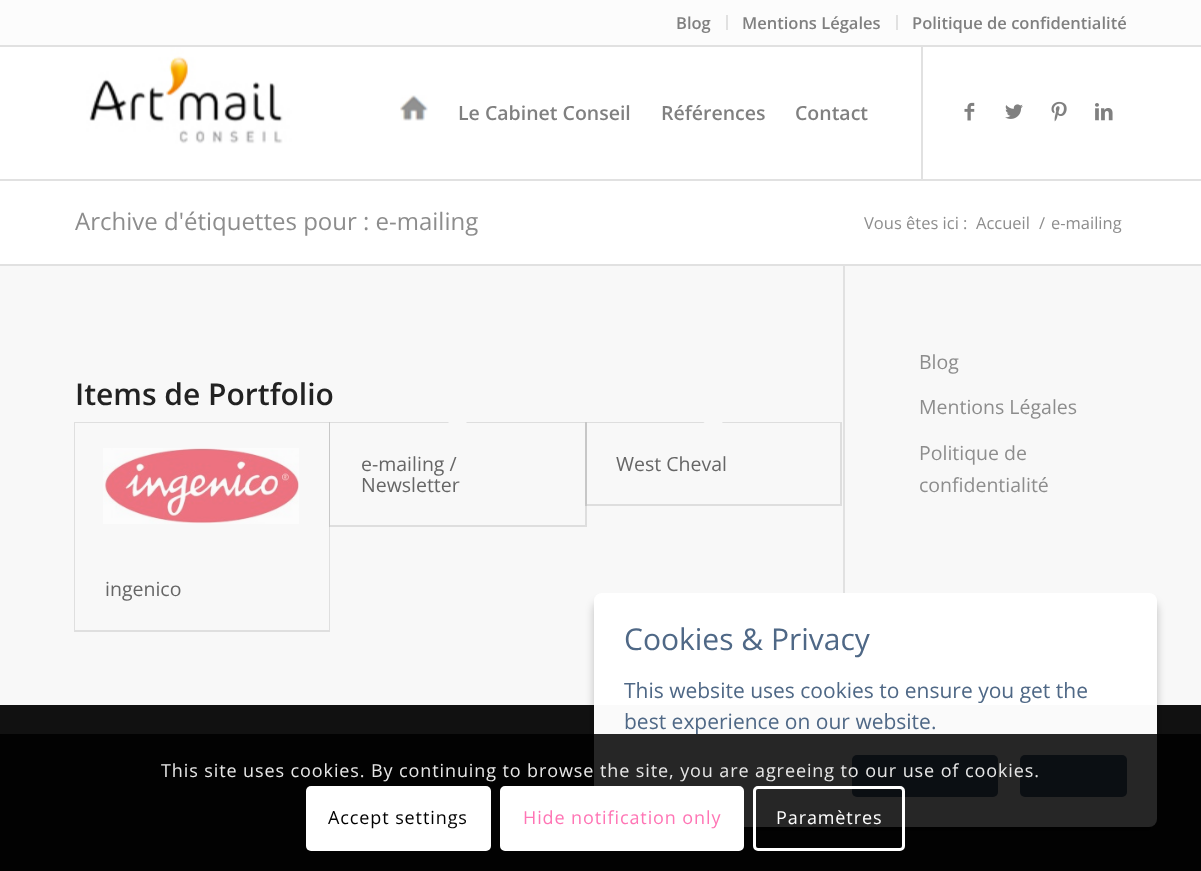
<svg xmlns="http://www.w3.org/2000/svg" width="1201" height="871" viewBox="0 0 1201 871">
  <defs>
    <clipPath id="clip1"><path d="M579 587H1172V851H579ZM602 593H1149C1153.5 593 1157 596.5 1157 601V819C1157 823.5 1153.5 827 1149 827H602C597.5 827 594 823.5 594 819V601C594 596.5 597.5 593 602 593Z" clip-rule="evenodd"/></clipPath>
    <filter id="blur1" x="-50%" y="-200%" width="200%" height="500%"><feGaussianBlur stdDeviation="4.5"/></filter>
  </defs>
  <rect width="100%" height="100%" fill="#111111"/>
  <rect x="0" y="0" width="1201" height="45" fill="#fcfcfc"/>
  <rect x="0" y="45" width="1201" height="2" fill="#e1e1e1"/>
  <rect x="726" y="15" width="2" height="15" fill="#e1e1e1"/>
  <text x="676" y="29" font-family="Open Sans" font-size="16.5" font-weight="600" fill="#808080">Blog</text>
  <rect x="896" y="15" width="2" height="15" fill="#e1e1e1"/>
  <text x="742" y="29" font-family="Open Sans" font-size="16.5" font-weight="600" fill="#808080">Mentions Légales</text>
  <text x="912" y="29" font-family="Open Sans" font-size="16.5" font-weight="600" fill="#808080">Politique de confidentialité</text>
  <rect x="0" y="47" width="1201" height="217" fill="#ffffff"/>
  <rect x="0" y="179" width="1201" height="2" fill="#e1e1e1"/>
  <image x="75" y="47" width="225" height="97" href="img1.png"/>
  <rect x="921" y="47" width="2" height="132" fill="#e1e1e1"/>
  <image x="400" y="95" width="28" height="26" href="img2.png"/>
  <text x="458" y="120" font-family="Open Sans" font-size="19.5" font-weight="600" fill="#808080">Le Cabinet Conseil</text>
  <text x="661" y="120" font-family="Open Sans" font-size="19.5" font-weight="600" fill="#808080">Références</text>
  <text x="795" y="120" font-family="Open Sans" font-size="19.5" font-weight="600" fill="#808080">Contact</text>
  <image x="964" y="102" width="11" height="19" href="img3.png"/>
  <image x="1005" y="104" width="18" height="15" href="img4.png"/>
  <image x="1051" y="101" width="16" height="21" href="img5.png"/>
  <image x="1095" y="103" width="18" height="18" href="img6.png"/>
  <text x="75" y="230" font-family="Open Sans" font-size="24" fill="#8d8d8d">Archive d'étiquettes pour : e-mailing</text>
  <text x="864" y="229" font-family="Open Sans" font-size="16.5" fill="#8d8d8d">Vous êtes ici :</text>
  <text x="976" y="229" font-family="Open Sans" font-size="16.5" fill="#8d8d8d">Accueil</text>
  <text x="1039" y="229" font-family="Open Sans" font-size="16.5" fill="#8d8d8d">/</text>
  <text x="1051" y="229" font-family="Open Sans" font-size="16.5" fill="#8d8d8d">e-mailing</text>
  <rect x="0" y="266" width="1201" height="439" fill="#f8f8f8"/>
  <rect x="0" y="264" width="1201" height="2" fill="#e1e1e1"/>
  <rect x="843" y="266" width="2" height="439" fill="#e1e1e1"/>
  <text x="75" y="405" font-family="Open Sans" font-size="30" font-weight="600" fill="#222222">Items de Portfolio</text>
  <rect x="75" y="423" width="254" height="208" fill="none" stroke="#dfdfdf" stroke-width="2"/>
  <rect x="330" y="423" width="256" height="103" fill="none" stroke="#000000" stroke-opacity="0.1" stroke-width="2"/>
  <rect x="330" y="423" width="255" height="102" fill="#f8f8f8"/>
  <path d="M457.5 413.5L468 424L457.5 435L447 424Z" fill="#f8f8f8"/>
  <text x="361" y="471" font-family="Open Sans" font-size="19.5" fill="#666666">e-mailing /</text>
  <text x="361" y="492" font-family="Open Sans" font-size="19.5" fill="#666666">Newsletter</text>
  <rect x="586" y="423" width="255" height="82" fill="none" stroke="#000000" stroke-opacity="0.1" stroke-width="2"/>
  <rect x="587" y="423" width="253" height="1" fill="#f8f8f8"/>
  <path d="M713 413.5L724 424L713 435L702.5 424Z" fill="#f8f8f8"/>
  <text x="616" y="471" font-family="Open Sans" font-size="19.5" fill="#666666">West Cheval</text>
  <rect x="75" y="423" width="254" height="207" fill="#f8f8f8"/>
  <image x="103" y="448" width="196" height="76" href="img7.png"/>
  <text x="105" y="596" font-family="Open Sans" font-size="19.5" fill="#666666">ingenico</text>
  <text x="919" y="369" font-family="Open Sans" font-size="19.5" fill="#8d8d8d">Blog</text>
  <text x="919" y="414" font-family="Open Sans" font-size="19.5" fill="#8d8d8d">Mentions Légales</text>
  <text x="919" y="460" font-family="Open Sans" font-size="19.5" fill="#8d8d8d">Politique de</text>
  <text x="919" y="492" font-family="Open Sans" font-size="19.5" fill="#8d8d8d">confidentialité</text>
  <g clip-path="url(#clip1)">
    <rect x="594" y="602" width="563" height="234" rx="8" fill="#000000" fill-opacity="0.24" filter="url(#blur1)"/>
  </g>
  <rect x="594" y="593" width="563" height="234" rx="8" fill="#ffffff" fill-opacity="0.98"/>
  <text x="624" y="650" font-family="Open Sans" font-size="30" fill="#4f6886">Cookies &amp; Privacy</text>
  <text x="624" y="698" font-family="Open Sans" font-size="21" fill="#4f6886">This website uses cookies to ensure you get the</text>
  <text x="624" y="729" font-family="Open Sans" font-size="21" fill="#4f6886">best experience on our website.</text>
  <rect x="852" y="755" width="146" height="42" rx="5" fill="#4a6382"/>
  <rect x="1020" y="755" width="107" height="42" rx="5" fill="#4a6382"/>
  <rect x="0" y="734" width="1201" height="137" fill="#000000" fill-opacity="0.85"/>
  <text x="161" y="777" font-family="Open Sans" font-size="18" letter-spacing="0.9" fill="#e7e7e7">This site uses cookies. By continuing to browse the site, you are agreeing to our use of cookies.</text>
  <rect x="306" y="786" width="185" height="65" rx="5" fill="#ffffff"/>
  <text x="328" y="824" font-family="Open Sans" font-size="18" letter-spacing="0.9" fill="#000000">Accept settings</text>
  <rect x="501.5" y="787.5" width="241" height="62" rx="3.5" fill="#ffffff" stroke="#ffffff" stroke-width="3"/>
  <text x="523" y="824" font-family="Open Sans" font-size="18" letter-spacing="0.9" fill="#ff75b5">Hide notification only</text>
  <rect x="754.5" y="787.5" width="149" height="62" rx="3.5" fill="none" stroke="#ffffff" stroke-width="3"/>
  <text x="776" y="824" font-family="Open Sans" font-size="18" letter-spacing="0.9" fill="#ffffff">Paramètres</text>
</svg>
